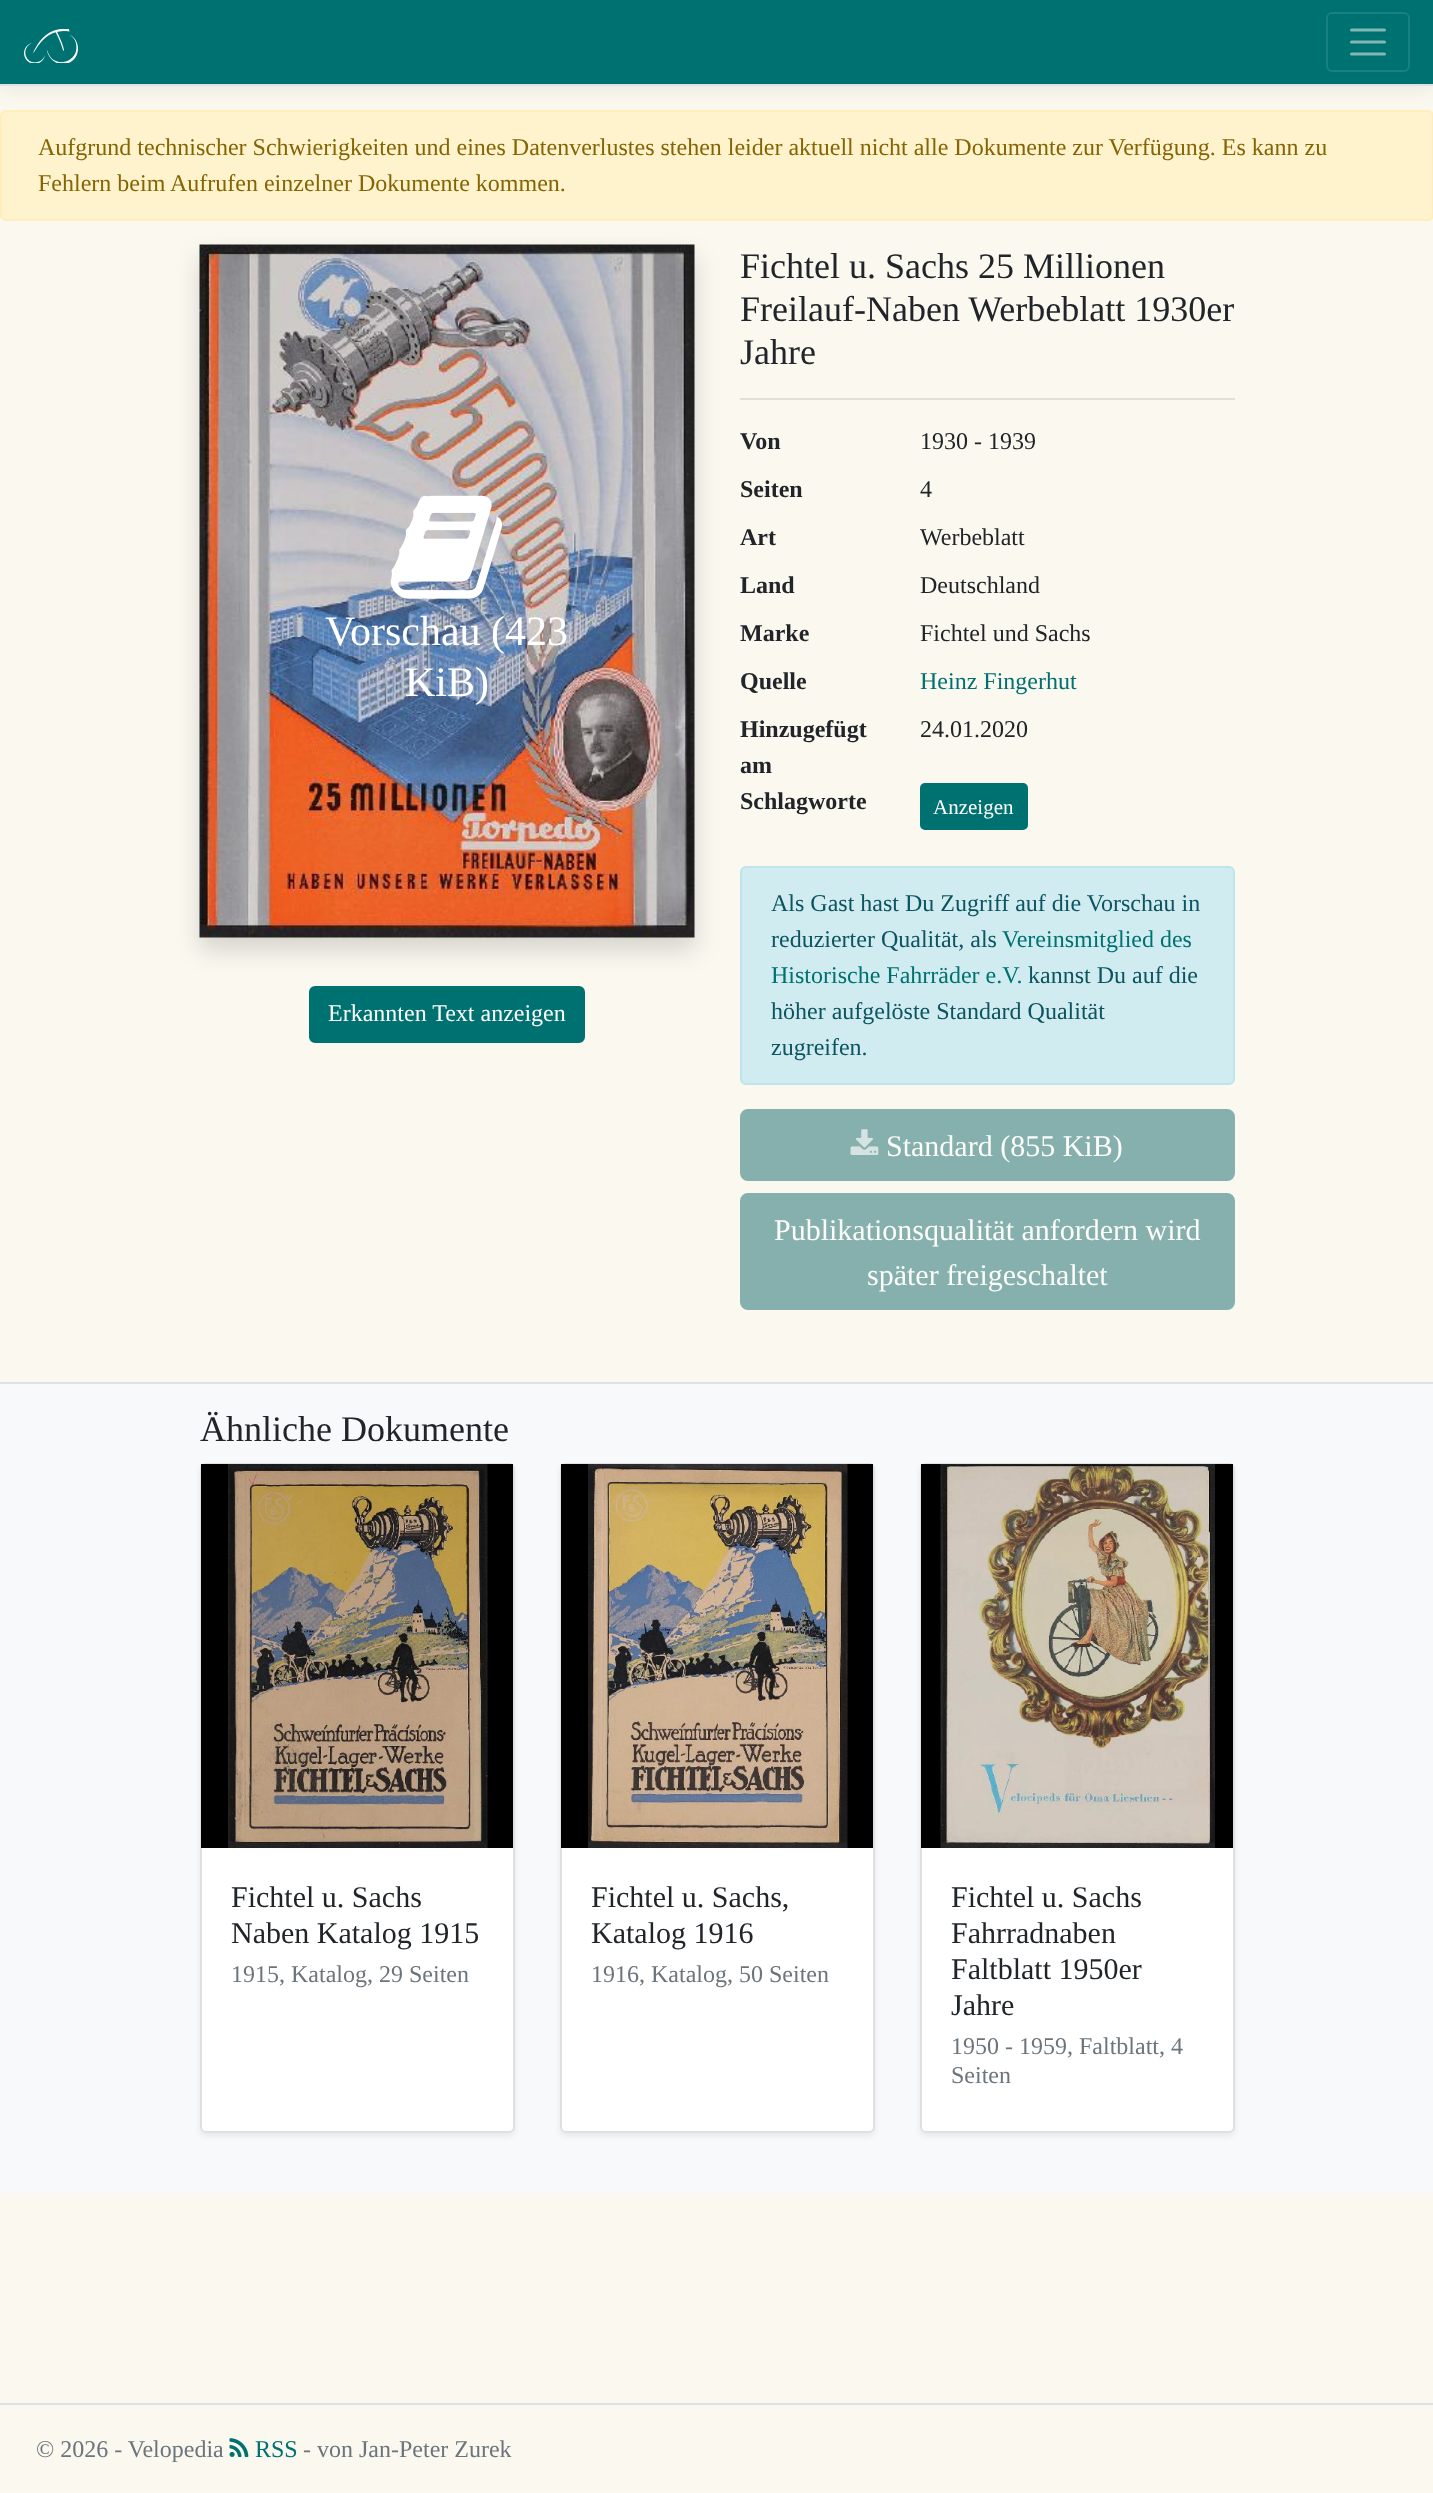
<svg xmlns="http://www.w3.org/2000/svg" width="1433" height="2493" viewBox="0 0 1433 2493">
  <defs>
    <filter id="blur1" x="-50%" y="-200%" width="200%" height="500%"><feGaussianBlur stdDeviation="9"/></filter>
    <filter id="blur2" x="-50%" y="-200%" width="200%" height="500%"><feGaussianBlur stdDeviation="12"/></filter>
    <filter id="blur3" x="-50%" y="-200%" width="200%" height="500%"><feGaussianBlur stdDeviation="3"/></filter>
  </defs>
  <rect width="100%" height="100%" fill="#faf8ef"/>
  <rect x="0" y="6" width="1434" height="86" fill="#000000" fill-opacity="0.05" filter="url(#blur1)"/>
  <rect x="0" y="0" width="1433" height="84" fill="#007171"/>
  <rect x="0" y="84" width="1433" height="2" fill="#dee2e6"/>
  <image x="24" y="29" width="54" height="34" href="img1.png"/>
  <rect x="1327" y="13" width="82" height="58" rx="5" fill="none" stroke="#1a7f7f" stroke-width="2"/>
  <path d="M1351.5 30H1384.5M1351.5 42H1384.5M1351.5 54H1384.5" fill="none" stroke="#80b8b8" stroke-width="3" stroke-linecap="round"/>
  <rect x="1" y="111" width="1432" height="109" rx="5" fill="#fff3cd" stroke="#ffeeba" stroke-width="2"/>
  <text x="38" y="155" font-family="Liberation Serif" font-size="24" fill="#856404">Aufgrund technischer Schwierigkeiten und eines Datenverlustes stehen leider aktuell nicht alle Dokumente zur Verfügung. Es kann zu</text>
  <text x="38" y="191" font-family="Liberation Serif" font-size="24" fill="#856404">Fehlern beim Aufrufen einzelner Dokumente kommen.</text>
  <rect x="310" y="987" width="274" height="55" rx="5" fill="#007171" stroke="#007171" stroke-width="2"/>
  <rect x="200" y="257" width="495" height="693" fill="#000000" fill-opacity="0.15" filter="url(#blur2)"/>
  <image x="199" y="244" width="496" height="694" href="img2.png"/>
  <image x="390" y="495" width="113" height="104" href="img3.png"/>
  <text x="325" y="645" font-family="Liberation Serif" font-size="42" fill="#ffffff">Vorschau (423</text>
  <text x="405" y="696" font-family="Liberation Serif" font-size="42" fill="#ffffff">KiB)</text>
  <text x="328" y="1021" font-family="Liberation Serif" font-size="24" fill="#ffffff">Erkannten Text anzeigen</text>
  <text x="740" y="278" font-family="Liberation Serif" font-size="36" fill="#212529">Fichtel u. Sachs 25 Millionen</text>
  <text x="740" y="321" font-family="Liberation Serif" font-size="36" fill="#212529">Freilauf-Naben Werbeblatt 1930er</text>
  <text x="740" y="364" font-family="Liberation Serif" font-size="36" fill="#212529">Jahre</text>
  <rect x="740" y="398" width="495" height="2" fill="#e1dfd7"/>
  <text x="740" y="449" font-family="Liberation Serif" font-size="24" font-weight="bold" fill="#212529">Von</text>
  <text x="920" y="449" font-family="Liberation Serif" font-size="24" fill="#212529">1930 - 1939</text>
  <text x="740" y="497" font-family="Liberation Serif" font-size="24" font-weight="bold" fill="#212529">Seiten</text>
  <text x="920" y="497" font-family="Liberation Serif" font-size="24" fill="#212529">4</text>
  <text x="740" y="545" font-family="Liberation Serif" font-size="24" font-weight="bold" fill="#212529">Art</text>
  <text x="920" y="545" font-family="Liberation Serif" font-size="24" fill="#212529">Werbeblatt</text>
  <text x="740" y="593" font-family="Liberation Serif" font-size="24" font-weight="bold" fill="#212529">Land</text>
  <text x="920" y="593" font-family="Liberation Serif" font-size="24" fill="#212529">Deutschland</text>
  <text x="740" y="641" font-family="Liberation Serif" font-size="24" font-weight="bold" fill="#212529">Marke</text>
  <text x="920" y="641" font-family="Liberation Serif" font-size="24" fill="#212529">Fichtel und Sachs</text>
  <text x="740" y="689" font-family="Liberation Serif" font-size="24" font-weight="bold" fill="#212529">Quelle</text>
  <text x="920" y="689" font-family="Liberation Serif" font-size="24" fill="#007171">Heinz Fingerhut</text>
  <text x="740" y="737" font-family="Liberation Serif" font-size="24" font-weight="bold" fill="#212529">Hinzugefügt</text>
  <text x="740" y="773" font-family="Liberation Serif" font-size="24" font-weight="bold" fill="#212529">am</text>
  <text x="920" y="737" font-family="Liberation Serif" font-size="24" fill="#212529">24.01.2020</text>
  <text x="740" y="809" font-family="Liberation Serif" font-size="24" font-weight="bold" fill="#212529">Schlagworte</text>
  <rect x="921" y="784" width="106" height="45" rx="4" fill="#007171" stroke="#007171" stroke-width="2"/>
  <text x="933" y="814" font-family="Liberation Serif" font-size="21" fill="#ffffff">Anzeigen</text>
  <rect x="741" y="867" width="493" height="217" rx="5" fill="#d1ecf1" stroke="#bee5eb" stroke-width="2"/>
  <text x="771" y="911" font-family="Liberation Serif" font-size="24" fill="#0c5460">Als Gast hast Du Zugriff auf die Vorschau in</text>
  <text x="771" y="947" font-family="Liberation Serif" font-size="24" fill="#0c5460">reduzierter Qualität, als</text>
  <text x="1002" y="947" font-family="Liberation Serif" font-size="24" fill="#007171">Vereinsmitglied des</text>
  <text x="771" y="983" font-family="Liberation Serif" font-size="24" fill="#007171">Historische Fahrräder e.V.</text>
  <text x="1028" y="983" font-family="Liberation Serif" font-size="24" fill="#0c5460">kannst Du auf die</text>
  <text x="771" y="1019" font-family="Liberation Serif" font-size="24" fill="#0c5460">höher aufgelöste Standard Qualität</text>
  <text x="771" y="1055" font-family="Liberation Serif" font-size="24" fill="#0c5460">zugreifen.</text>
  <rect x="741" y="1110" width="493" height="70" rx="7" fill="#86b0ad" stroke="#86b0ad" stroke-width="2"/>
  <image x="850" y="1129" width="29" height="26" href="img4.png"/>
  <text x="886" y="1156" font-family="Liberation Serif" font-size="30" fill="#fdfdf9">Standard (855 KiB)</text>
  <rect x="741" y="1194" width="493" height="115" rx="7" fill="#86b0ad" stroke="#86b0ad" stroke-width="2"/>
  <text x="774" y="1240" font-family="Liberation Serif" font-size="30" fill="#fdfdf9">Publikationsqualität anfordern wird</text>
  <text x="867" y="1285" font-family="Liberation Serif" font-size="30" fill="#fdfdf9">später freigeschaltet</text>
  <rect x="0" y="1384" width="1433" height="809" fill="#f8f9fa"/>
  <rect x="0" y="1382" width="1433" height="2" fill="#dee2e6"/>
  <text x="200" y="1441" font-family="Liberation Serif" font-size="36" fill="#212529">Ähnliche Dokumente</text>
  <rect x="200" y="1466" width="315" height="670" rx="6" fill="#000000" fill-opacity="0.07" filter="url(#blur3)"/>
  <rect x="200" y="1463" width="315" height="670" rx="6" fill="#ffffff"/>
  <rect x="201" y="1464" width="313" height="668" rx="5" fill="none" stroke="#000000" stroke-opacity="0.12" stroke-width="2"/>
  <rect x="201" y="1464" width="312" height="384" fill="#000000"/>
  <image x="228" y="1464" width="260" height="384" href="img5.png"/>
  <text x="231" y="1907" font-family="Liberation Serif" font-size="30" fill="#212529">Fichtel u. Sachs</text>
  <text x="231" y="1943" font-family="Liberation Serif" font-size="30" fill="#212529">Naben Katalog 1915</text>
  <text x="231" y="1982" font-family="Liberation Serif" font-size="24" fill="#6c757d">1915, Katalog, 29 Seiten</text>
  <rect x="560" y="1466" width="315" height="670" rx="6" fill="#000000" fill-opacity="0.07" filter="url(#blur3)"/>
  <rect x="560" y="1463" width="315" height="670" rx="6" fill="#ffffff"/>
  <rect x="561" y="1464" width="313" height="668" rx="5" fill="none" stroke="#000000" stroke-opacity="0.12" stroke-width="2"/>
  <rect x="561" y="1464" width="312" height="384" fill="#000000"/>
  <image x="588" y="1464" width="260" height="384" href="img6.png"/>
  <text x="591" y="1907" font-family="Liberation Serif" font-size="30" fill="#212529">Fichtel u. Sachs,</text>
  <text x="591" y="1943" font-family="Liberation Serif" font-size="30" fill="#212529">Katalog 1916</text>
  <text x="591" y="1982" font-family="Liberation Serif" font-size="24" fill="#6c757d">1916, Katalog, 50 Seiten</text>
  <rect x="920" y="1466" width="315" height="670" rx="6" fill="#000000" fill-opacity="0.07" filter="url(#blur3)"/>
  <rect x="920" y="1463" width="315" height="670" rx="6" fill="#ffffff"/>
  <rect x="921" y="1464" width="313" height="668" rx="5" fill="none" stroke="#000000" stroke-opacity="0.12" stroke-width="2"/>
  <rect x="921" y="1464" width="312" height="384" fill="#000000"/>
  <image x="940" y="1464" width="275" height="384" href="img7.png"/>
  <text x="951" y="1907" font-family="Liberation Serif" font-size="30" fill="#212529">Fichtel u. Sachs</text>
  <text x="951" y="1943" font-family="Liberation Serif" font-size="30" fill="#212529">Fahrradnaben</text>
  <text x="951" y="1979" font-family="Liberation Serif" font-size="30" fill="#212529">Faltblatt 1950er</text>
  <text x="951" y="2015" font-family="Liberation Serif" font-size="30" fill="#212529">Jahre</text>
  <text x="951" y="2054" font-family="Liberation Serif" font-size="24" fill="#6c757d">1950 - 1959, Faltblatt, 4</text>
  <text x="951" y="2083" font-family="Liberation Serif" font-size="24" fill="#6c757d">Seiten</text>
  <rect x="0" y="2403" width="1433" height="2" fill="#dee2e6"/>
  <text x="36" y="2457" font-family="Liberation Serif" font-size="24" fill="#6c757d">© 2026 - Velopedia</text>
  <image x="229" y="2438" width="20" height="19" href="img8.png"/>
  <text x="255" y="2457" font-family="Liberation Serif" font-size="24" fill="#007171">RSS</text>
  <text x="303" y="2457" font-family="Liberation Serif" font-size="24" fill="#6c757d">- von Jan-Peter Zurek</text>
</svg>
